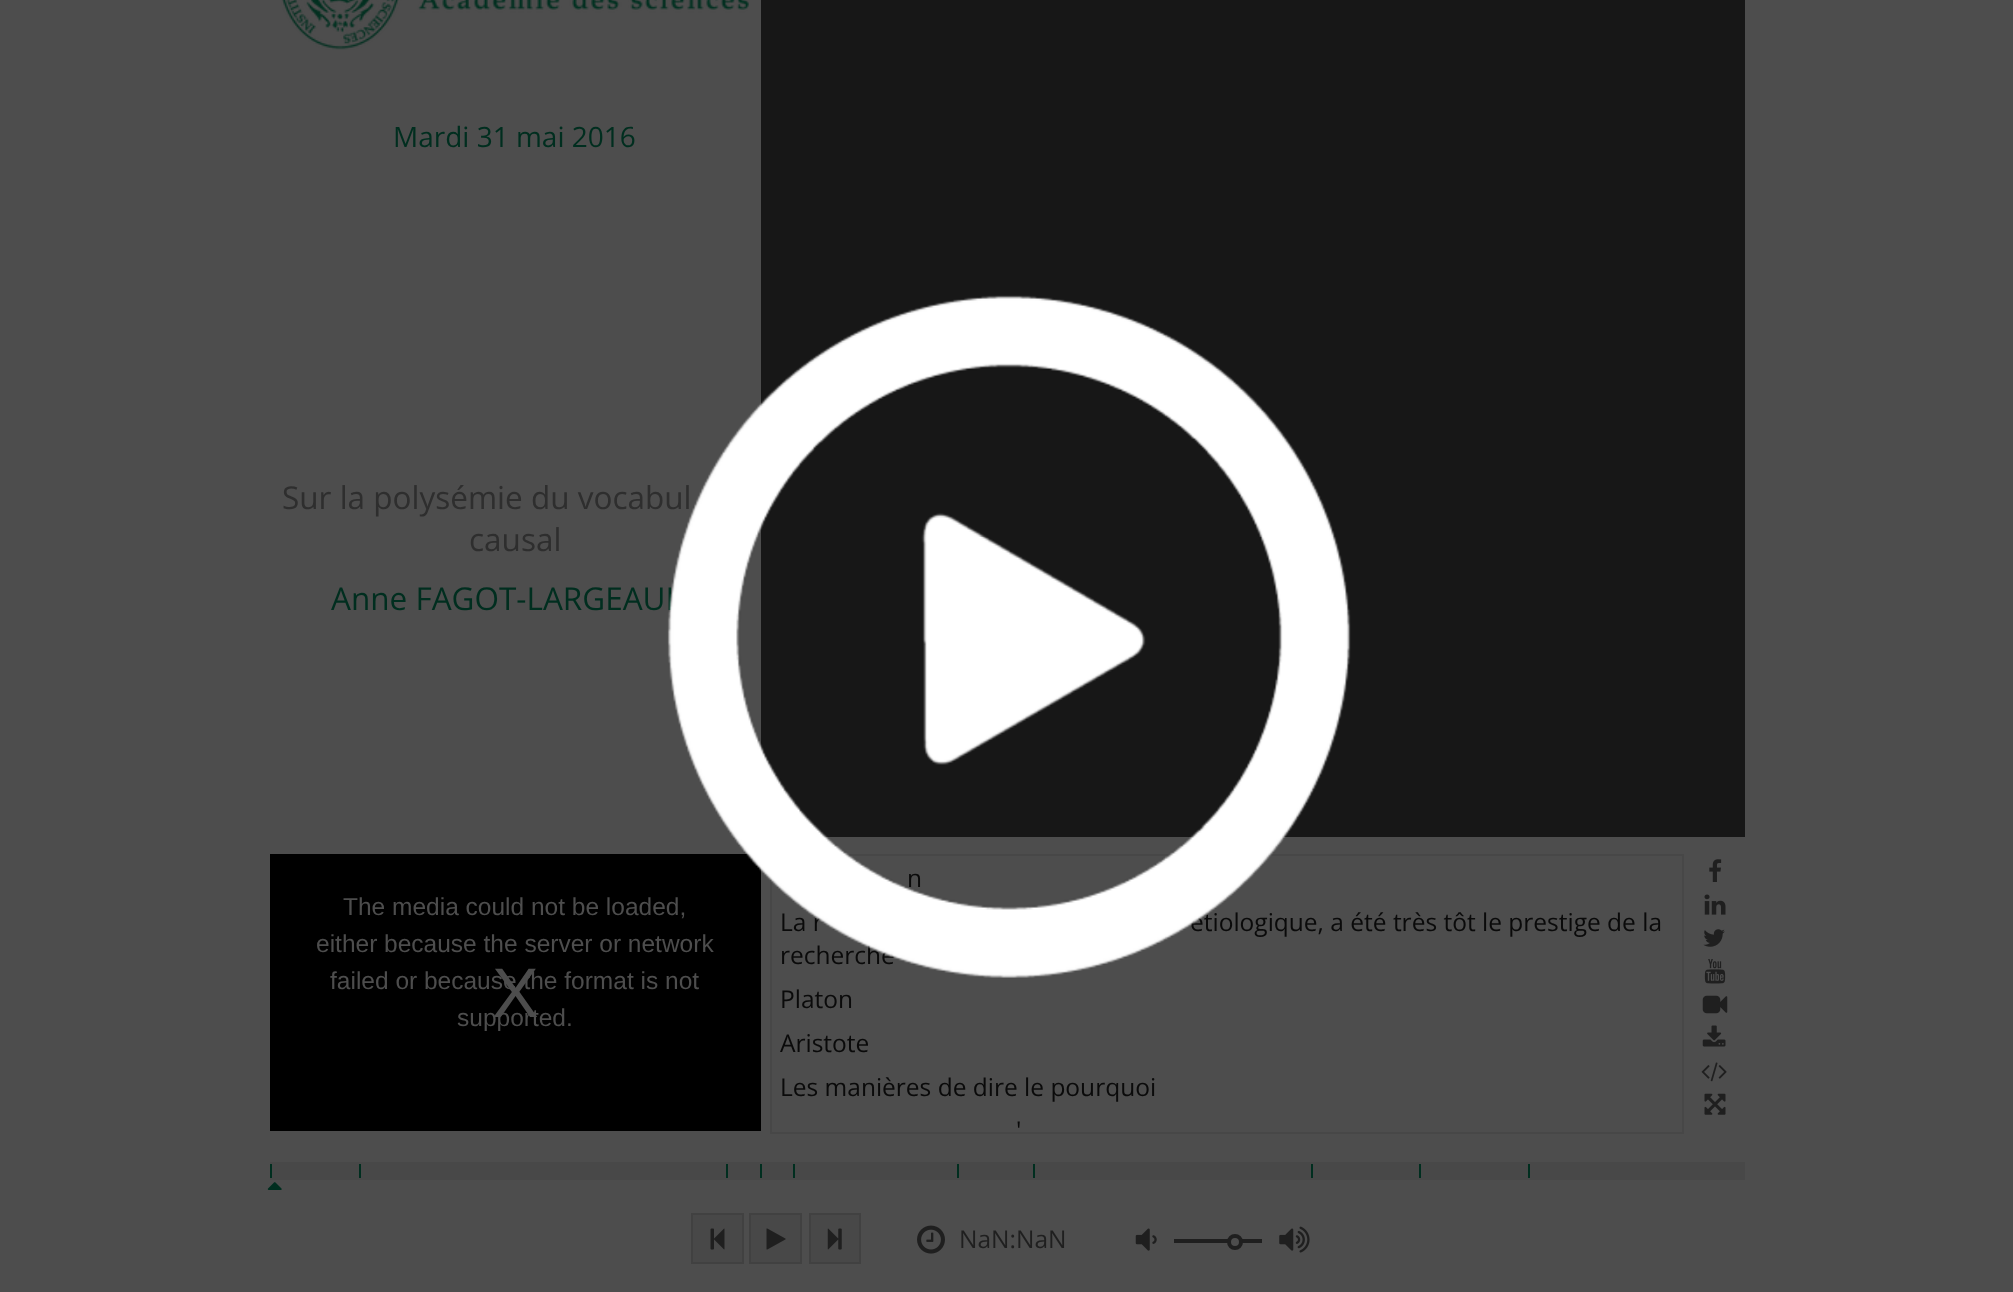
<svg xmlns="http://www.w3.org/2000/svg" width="2013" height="1292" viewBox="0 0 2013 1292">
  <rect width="100%" height="100%" fill="#ffffff"/>
  <rect x="0" y="0" width="2013" height="1292" fill="#4d4d4d"/>
  <image x="281" y="0" width="468" height="50" href="img1.png"/>
  <text x="393" y="147" font-family="Open Sans" font-size="28" fill="#002e1f">Mardi 31 mai 2016</text>
  <text x="282" y="509" font-family="Open Sans" font-size="31.5" fill="#2e2e2e">Sur la polysémie du vocabul</text>
  <text x="469" y="551" font-family="Open Sans" font-size="31.5" fill="#2e2e2e">causal</text>
  <text x="331" y="610" font-family="Open Sans" font-size="31.5" fill="#002e1f">Anne FAGOT-LARGEAUL</text>
  <rect x="761" y="0" width="984" height="837" fill="#171717"/>
  <rect x="270" y="854" width="491" height="277" fill="#000000"/>
  <text x="343" y="915" font-family="Liberation Sans" font-size="24.5" fill="#4d4d4d">The media could not be loaded,</text>
  <text x="316" y="952" font-family="Liberation Sans" font-size="24.5" fill="#4d4d4d">either because the server or network</text>
  <text x="492" y="1017" font-family="Liberation Sans" font-size="70" fill="#4d4d4d">X</text>
  <text x="330" y="989" font-family="Liberation Sans" font-size="24.5" fill="#4d4d4d">failed or because the format is not</text>
  <text x="457" y="1026" font-family="Liberation Sans" font-size="24.5" fill="#4d4d4d">supported.</text>
  <rect x="771" y="855" width="912" height="278" fill="none" stroke="#474747" stroke-width="2"/>
  <text x="907" y="887" font-family="Open Sans" font-size="24.5" fill="#0a0a0a">n</text>
  <text x="780" y="931" font-family="Open Sans" font-size="24.5" fill="#0a0a0a">La r</text>
  <text x="1190" y="931" font-family="Open Sans" font-size="24.5" fill="#0a0a0a">étiologique, a été très tôt le prestige de la</text>
  <text x="780" y="964" font-family="Open Sans" font-size="24.5" fill="#0a0a0a">recherche</text>
  <text x="780" y="1008" font-family="Open Sans" font-size="24.5" fill="#0a0a0a">Platon</text>
  <text x="780" y="1052" font-family="Open Sans" font-size="24.5" fill="#0a0a0a">Aristote</text>
  <text x="780" y="1096" font-family="Open Sans" font-size="24.5" fill="#0a0a0a">Les manières de dire le pourquoi</text>
  <text x="1016" y="1139" font-family="Open Sans" font-size="24.5" fill="#0a0a0a">'</text>
  <image x="1709" y="859" width="13" height="23" href="img2.png"/>
  <image x="1704" y="894" width="22" height="21" href="img3.png"/>
  <image x="1703" y="929" width="22" height="18" href="img4.png"/>
  <image x="1704" y="959" width="22" height="25" href="img5.png"/>
  <image x="1702" y="995" width="26" height="19" href="img6.png"/>
  <image x="1702" y="1025" width="24" height="22" href="img7.png"/>
  <image x="1701" y="1062" width="26" height="20" href="img8.png"/>
  <image x="1704" y="1093" width="22" height="22" href="img9.png"/>
  <rect x="270" y="1162" width="1475" height="18" fill="#484848"/>
  <rect x="270" y="1164" width="2" height="14" fill="#002e1f"/>
  <rect x="359" y="1164" width="2" height="14" fill="#002e1f"/>
  <rect x="726" y="1164" width="2" height="14" fill="#002e1f"/>
  <rect x="760" y="1164" width="2" height="14" fill="#002e1f"/>
  <rect x="793" y="1164" width="2" height="14" fill="#002e1f"/>
  <rect x="957" y="1164" width="2" height="14" fill="#002e1f"/>
  <rect x="1033" y="1164" width="2" height="14" fill="#002e1f"/>
  <rect x="1311" y="1164" width="2" height="14" fill="#002e1f"/>
  <rect x="1419" y="1164" width="2" height="14" fill="#002e1f"/>
  <rect x="1528" y="1164" width="2" height="14" fill="#002e1f"/>
  <image x="267" y="1182" width="15" height="8" href="img10.png"/>
  <rect x="692" y="1214" width="51" height="49" fill="#484848" stroke="#414141" stroke-width="2"/>
  <image x="710" y="1228" width="15" height="22" href="img11.png"/>
  <rect x="750" y="1214" width="51" height="49" fill="#484848" stroke="#414141" stroke-width="2"/>
  <image x="766" y="1228" width="20" height="22" href="img12.png"/>
  <rect x="810" y="1214" width="50" height="49" fill="#484848" stroke="#414141" stroke-width="2"/>
  <image x="827" y="1228" width="15" height="22" href="img13.png"/>
  <image x="917" y="1225" width="28" height="29" href="img14.png"/>
  <text x="959" y="1248" font-family="Open Sans" font-size="24.5" fill="#1f1f1f">NaN:NaN</text>
  <image x="1135" y="1228" width="22" height="23" href="img15.png"/>
  <rect x="1174" y="1239" width="88" height="4" fill="#1f1f1f"/>
  <circle cx="1235" cy="1242" r="6" fill="#4d4d4d" stroke="#1f1f1f" stroke-width="4"/>
  <image x="1279" y="1226" width="31" height="27" href="img16.png"/>
  <image x="667" y="295" width="684" height="683" href="img17.png"/>
</svg>
